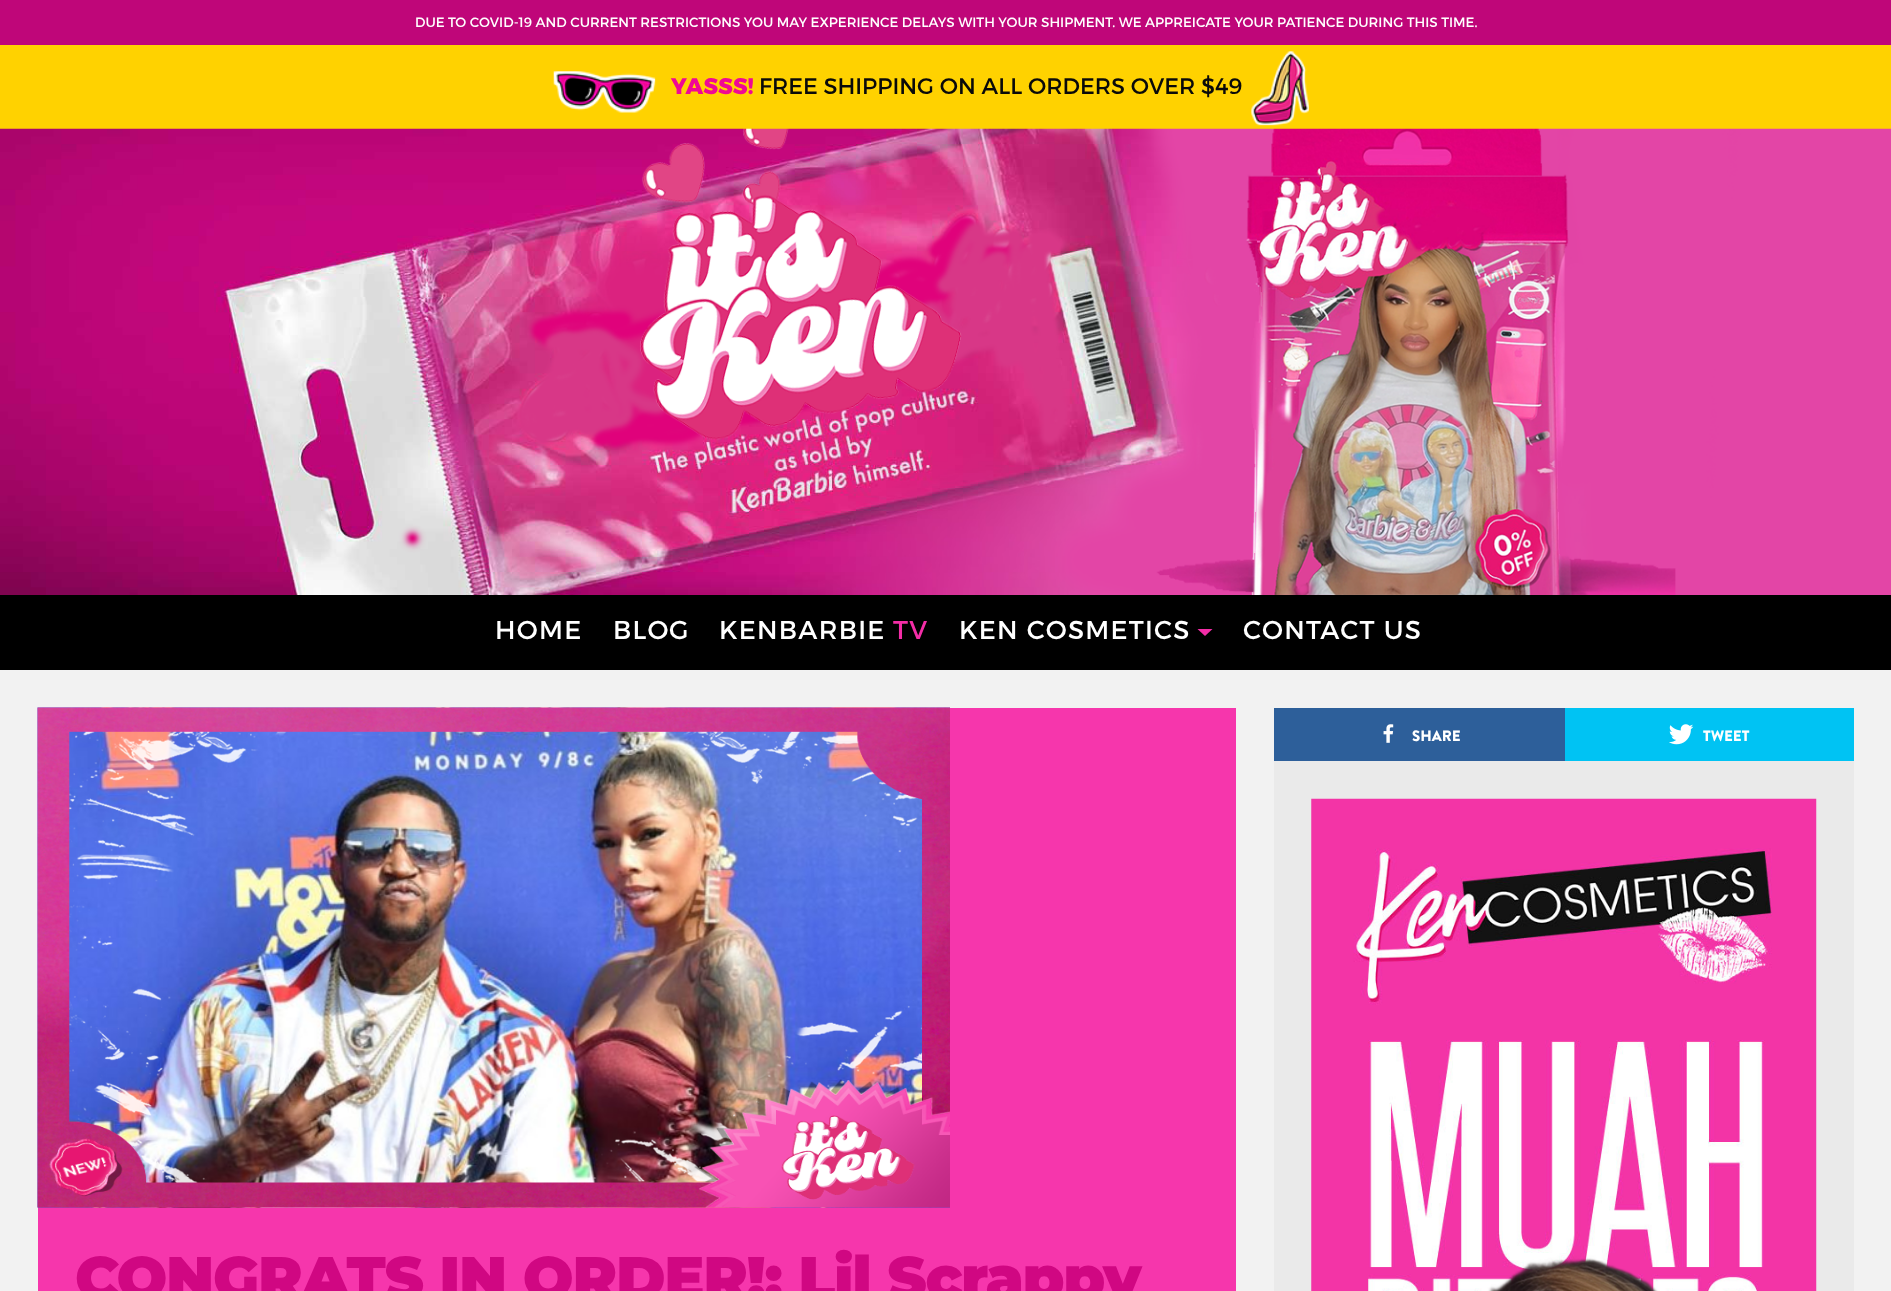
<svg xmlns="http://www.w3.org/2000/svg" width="1891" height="1291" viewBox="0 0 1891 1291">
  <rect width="100%" height="100%" fill="#f2f2f2"/>
  <rect x="0" y="0" width="1891" height="45" fill="#bf0679"/>
  <text x="415" y="27" font-family="Montserrat" font-size="13.5" fill="#ffffff">DUE TO COVID-19 AND CURRENT RESTRICTIONS YOU MAY EXPERIENCE DELAYS WITH YOUR SHIPMENT. WE APPREICATE YOUR PATIENCE DURING THIS TIME.</text>
  <rect x="0" y="45" width="1891" height="84" fill="#ffd200"/>
  <image x="553" y="71" width="103" height="42" href="img1.png"/>
  <text x="671" y="94" font-family="Montserrat" font-size="22.5" font-weight="800" fill="#f00896">YASSS!</text>
  <text x="759" y="94" font-family="Montserrat" font-size="22.5" fill="#0a0a0a">FREE SHIPPING ON ALL ORDERS OVER $49</text>
  <image x="1251" y="51" width="58" height="75" href="img2.png"/>
  <image x="0" y="128" width="1891" height="467" href="img3.png"/>
  <rect x="0" y="595" width="1891" height="75" fill="#000000"/>
  <text x="495" y="639" font-family="Montserrat" font-size="25.9" letter-spacing="1.25" fill="#ffffff">HOME</text>
  <text x="613" y="639" font-family="Montserrat" font-size="25.9" letter-spacing="1.25" fill="#ffffff">BLOG</text>
  <text x="719" y="639" font-family="Montserrat" font-size="25.9" letter-spacing="1.25" fill="#ffffff">KENBARBIE</text>
  <text x="893" y="639" font-family="Montserrat" font-size="25.9" letter-spacing="1.25" fill="#f42da7">TV</text>
  <text x="959" y="639" font-family="Montserrat" font-size="25.9" letter-spacing="1.25" fill="#ffffff">KEN COSMETICS</text>
  <path d="M1197.5 629H1212.5L1205 636Z" fill="#f42da7"/>
  <text x="1243" y="639" font-family="Montserrat" font-size="25.9" letter-spacing="1.25" fill="#ffffff">CONTACT US</text>
  <rect x="1274" y="708" width="291" height="53" fill="#2d5f9a"/>
  <image x="1383" y="724" width="11" height="19" href="img4.png"/>
  <text x="1412" y="741" font-family="Brandon Grotesque" font-size="15" font-weight="900" fill="#ffffff">SHARE</text>
  <rect x="1565" y="708" width="289" height="53" fill="#00c3f3"/>
  <image x="1669" y="724" width="25" height="21" href="img5.png"/>
  <text x="1703" y="741" font-family="Brandon Grotesque" font-size="15" font-weight="900" fill="#ffffff">TWEET</text>
  <rect x="1274" y="761" width="580" height="530" fill="#eaeaea"/>
  <image x="1311" y="798" width="506" height="493" href="img6.png"/>
  <rect x="38" y="708" width="1198" height="583" fill="#f636ac"/>
  <image x="37" y="707" width="913" height="501" href="img7.png"/>
  <image x="37" y="707" width="913" height="501" href="img8.png"/>
  <text x="75" y="1299" font-family="Montserrat" font-size="60" font-weight="100" letter-spacing="-1.25" fill="#d00782">CONGRATS IN ORDER!: Lil Scrappy</text>
</svg>
